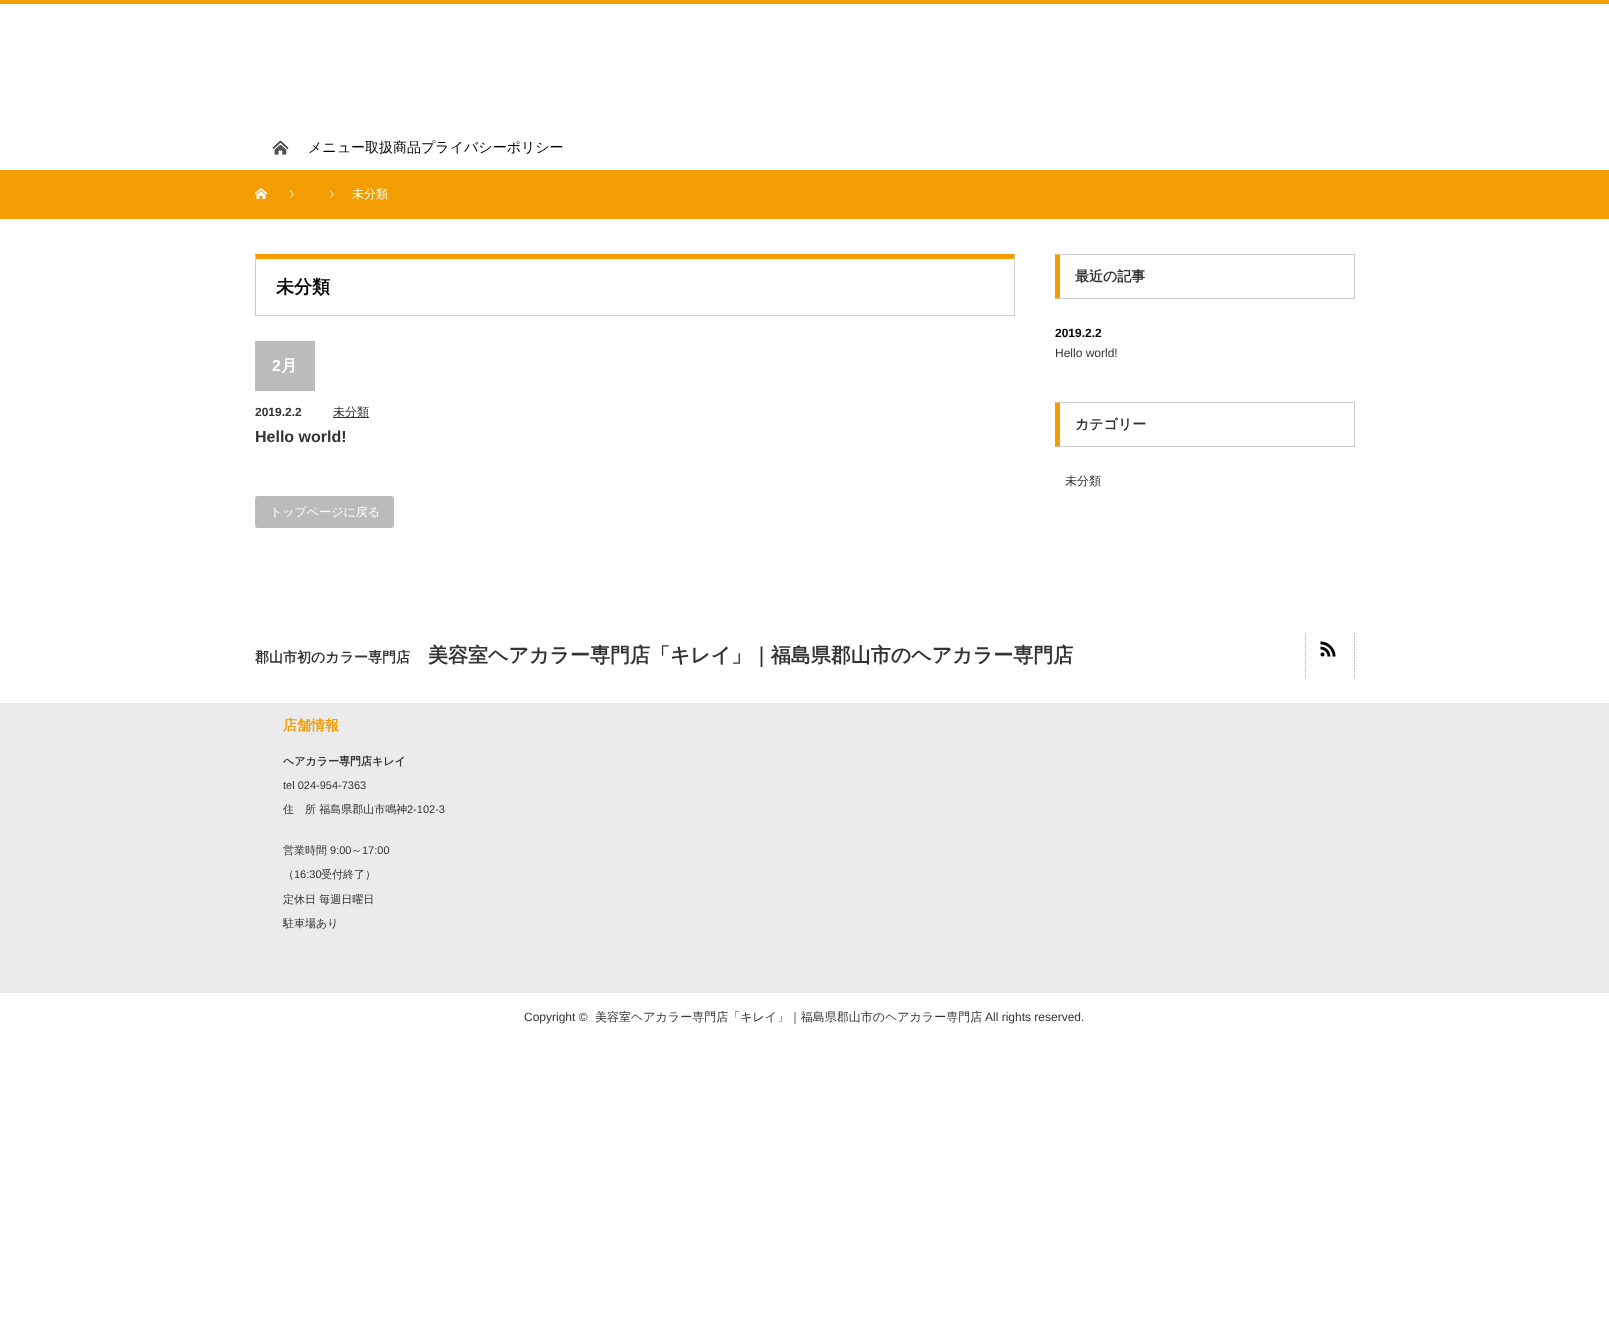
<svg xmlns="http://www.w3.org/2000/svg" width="1609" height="1338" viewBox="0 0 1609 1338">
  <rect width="100%" height="100%" fill="#ffffff"/>
  <rect x="0" y="0" width="1609" height="4" fill="#f39d00"/>
  <image x="272" y="140" width="17" height="15" href="img1.png"/>
  <text x="308" y="152" font-family="WenQuanYi Zen Hei" font-size="14" font-weight="500" fill="#000000">メニュー取扱商品プライバシーポリシー</text>
  <rect x="0" y="170" width="1609" height="49" fill="#f39d00"/>
  <image x="255" y="188" width="12" height="11" href="img2.png"/>
  <image x="289" y="190" width="5" height="8" href="img3.png"/>
  <image x="329" y="190" width="5" height="8" href="img3.png"/>
  <text x="352" y="198" font-family="WenQuanYi Zen Hei" font-size="12" font-weight="500" fill="#ffffff">未分類</text>
  <path d="M255 254H1015L1014 259H256Z" fill="#f39d00"/>
  <path d="M1015 254V316L1014 315V259Z" fill="#cccccc"/>
  <rect x="255" y="315" width="760" height="1" fill="#cccccc"/>
  <path d="M255 316V254L256 259V315Z" fill="#cccccc"/>
  <text x="276" y="293" font-family="WenQuanYi Zen Hei" font-size="18" font-weight="bold" fill="#000000">未分類</text>
  <rect x="255" y="341" width="60" height="50" fill="#bbbbbb"/>
  <text x="272" y="371" font-family="Liberation Sans" font-size="16" font-weight="bold" fill="#ffffff">2</text>
  <text x="281" y="371" font-family="WenQuanYi Zen Hei" font-size="16" font-weight="bold" fill="#ffffff">月</text>
  <text x="255" y="416" font-family="Liberation Sans" font-size="12" font-weight="bold" fill="#333333">2019.2.2</text>
  <rect x="333" y="417" width="36" height="1" fill="#333333"/>
  <text x="333" y="416" font-family="WenQuanYi Zen Hei" font-size="12" font-weight="500" fill="#333333">未分類</text>
  <text x="255" y="442" font-family="Liberation Sans" font-size="16" font-weight="bold" fill="#333333">Hello world!</text>
  <rect x="255" y="496" width="139" height="32" rx="3" fill="#bbbbbb"/>
  <text x="270" y="516" font-family="WenQuanYi Zen Hei" font-size="12" font-weight="500" fill="#ffffff">トップページに戻る</text>
  <path d="M1055 254H1355L1354 255H1060Z" fill="#cccccc"/>
  <rect x="1354" y="254" width="1" height="45" fill="#cccccc"/>
  <path d="M1355 299H1055L1060 298H1354Z" fill="#cccccc"/>
  <path d="M1055 299V254L1060 255V298Z" fill="#f39d00"/>
  <text x="1075" y="281" font-family="WenQuanYi Zen Hei" font-size="14" font-weight="bold" fill="#333333">最近の記事</text>
  <text x="1055" y="337" font-family="Liberation Sans" font-size="12" font-weight="bold" fill="#000000">2019.2.2</text>
  <text x="1055" y="357" font-family="Liberation Sans" font-size="12" fill="#333333">Hello world!</text>
  <path d="M1055 402H1355L1354 403H1060Z" fill="#cccccc"/>
  <rect x="1354" y="402" width="1" height="45" fill="#cccccc"/>
  <path d="M1355 447H1055L1060 446H1354Z" fill="#cccccc"/>
  <path d="M1055 447V402L1060 403V446Z" fill="#f39d00"/>
  <text x="1075" y="429" font-family="WenQuanYi Zen Hei" font-size="14" font-weight="bold" fill="#333333">カテゴリー</text>
  <text x="1065" y="485" font-family="WenQuanYi Zen Hei" font-size="12" font-weight="500" fill="#333333">未分類</text>
  <text x="255" y="662" font-family="WenQuanYi Zen Hei" font-size="14" font-weight="bold" fill="#333333">郡山市初のカラー専門店</text>
  <text x="428" y="662" font-family="WenQuanYi Zen Hei" font-size="20" font-weight="bold" fill="#333333">美容室ヘアカラー専門店「キレイ」｜福島県郡山市のヘアカラー専門店</text>
  <path d="M1354.5 633V678" fill="none" stroke="#aaaaaa" stroke-dasharray="1 1"/>
  <path d="M1305.5 633V678" fill="none" stroke="#aaaaaa" stroke-dasharray="1 1"/>
  <image x="1320" y="641" width="16" height="16" href="img4.png"/>
  <rect x="0" y="703" width="1609" height="290" fill="#ebebeb"/>
  <text x="283" y="730" font-family="WenQuanYi Zen Hei" font-size="14" font-weight="bold" fill="#f39d00">店舗情報</text>
  <text x="283" y="765" font-family="WenQuanYi Zen Hei" font-size="11" font-weight="bold" fill="#333333">ヘアカラー専門店キレイ</text>
  <text x="283" y="789" font-family="Liberation Sans" font-size="11" fill="#333333">tel 024-954-7363</text>
  <text x="283" y="813" font-family="WenQuanYi Zen Hei" font-size="11" font-weight="500" fill="#333333">住　所 福島県郡山市鳴神</text>
  <text x="407" y="813" font-family="Liberation Sans" font-size="11" fill="#333333">2-102-3</text>
  <text x="283" y="854" font-family="WenQuanYi Zen Hei" font-size="11" font-weight="500" fill="#333333">営業時間</text>
  <text x="330" y="854" font-family="Liberation Sans" font-size="11" fill="#333333">9:00</text>
  <text x="351" y="854" font-family="WenQuanYi Zen Hei" font-size="11" font-weight="500" fill="#333333">～</text>
  <text x="362" y="854" font-family="Liberation Sans" font-size="11" fill="#333333">17:00</text>
  <text x="283" y="878" font-family="WenQuanYi Zen Hei" font-size="11" font-weight="500" fill="#333333">（</text>
  <text x="294" y="878" font-family="Liberation Sans" font-size="11" fill="#333333">16:30</text>
  <text x="321" y="878" font-family="WenQuanYi Zen Hei" font-size="11" font-weight="500" fill="#333333">受付終了）</text>
  <text x="283" y="903" font-family="WenQuanYi Zen Hei" font-size="11" font-weight="500" fill="#333333">定休日 毎週日曜日</text>
  <text x="283" y="927" font-family="WenQuanYi Zen Hei" font-size="11" font-weight="500" fill="#333333">駐車場あり</text>
  <text x="524" y="1021" font-family="Liberation Sans" font-size="12" fill="#333333">Copyright ©</text>
  <text x="595" y="1021" font-family="WenQuanYi Zen Hei" font-size="12" font-weight="500" fill="#333333">美容室ヘアカラー専門店「キレイ」｜福島県郡山市のヘアカラー専門店</text>
  <text x="985" y="1021" font-family="Liberation Sans" font-size="12" fill="#333333">All rights reserved.</text>
</svg>
